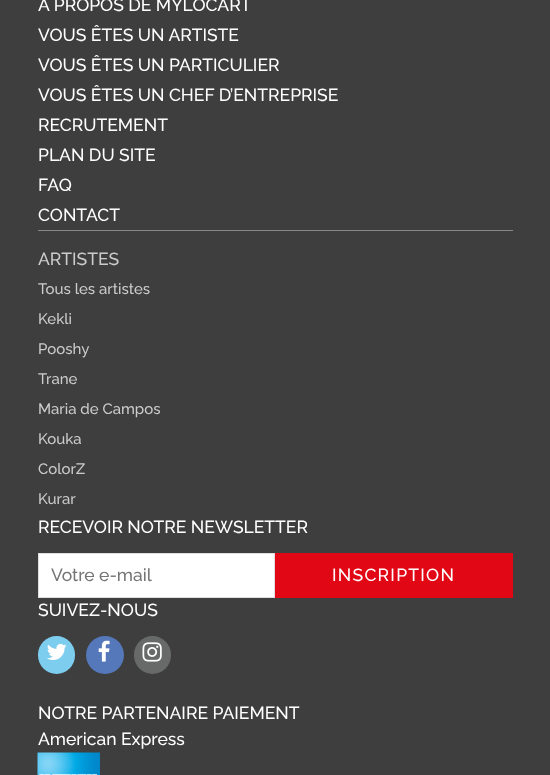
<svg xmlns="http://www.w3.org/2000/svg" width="550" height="775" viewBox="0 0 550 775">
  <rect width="100%" height="100%" fill="#3e3e3e"/>
  <rect x="38" y="230" width="475" height="1" fill="#888888"/>
  <text x="38" y="11" font-family="Raleway" font-size="17.5" font-weight="500" fill="#ffffff">A PROPOS DE MYLOCART</text>
  <text x="38" y="41" font-family="Raleway" font-size="17.5" font-weight="500" fill="#ffffff">VOUS ÊTES UN ARTISTE</text>
  <text x="38" y="71" font-family="Raleway" font-size="17.5" font-weight="500" fill="#ffffff">VOUS ÊTES UN PARTICULIER</text>
  <text x="38" y="101" font-family="Raleway" font-size="17.5" font-weight="500" fill="#ffffff">VOUS ÊTES UN CHEF D’ENTREPRISE</text>
  <text x="38" y="131" font-family="Raleway" font-size="17.5" font-weight="500" fill="#ffffff">RECRUTEMENT</text>
  <text x="38" y="161" font-family="Raleway" font-size="17.5" font-weight="500" fill="#ffffff">PLAN DU SITE</text>
  <text x="38" y="191" font-family="Raleway" font-size="17.5" font-weight="500" fill="#ffffff">FAQ</text>
  <text x="38" y="221" font-family="Raleway" font-size="17.5" font-weight="500" fill="#ffffff">CONTACT</text>
  <text x="38" y="265" font-family="Raleway" font-size="17.5" font-weight="500" fill="#cccccc">ARTISTES</text>
  <text x="38" y="294" font-family="Raleway" font-size="15" font-weight="500" fill="#cccccc">Tous les artistes</text>
  <text x="38" y="324" font-family="Raleway" font-size="15" font-weight="500" fill="#cccccc">Kekli</text>
  <text x="38" y="354" font-family="Raleway" font-size="15" font-weight="500" fill="#cccccc">Pooshy</text>
  <text x="38" y="384" font-family="Raleway" font-size="15" font-weight="500" fill="#cccccc">Trane</text>
  <text x="38" y="414" font-family="Raleway" font-size="15" font-weight="500" fill="#cccccc">Maria de Campos</text>
  <text x="38" y="444" font-family="Raleway" font-size="15" font-weight="500" fill="#cccccc">Kouka</text>
  <text x="38" y="474" font-family="Raleway" font-size="15" font-weight="500" fill="#cccccc">ColorZ</text>
  <text x="38" y="504" font-family="Raleway" font-size="15" font-weight="500" fill="#cccccc">Kurar</text>
  <text x="38" y="533" font-family="Raleway" font-size="17.5" font-weight="500" fill="#ffffff">RECEVOIR NOTRE NEWSLETTER</text>
  <rect x="38.5" y="553.5" width="236" height="44" fill="#ffffff" stroke="#dedede"/>
  <text x="51" y="581" font-family="Raleway" font-size="17.5" font-weight="500" fill="#757575">Votre e-mail</text>
  <rect x="275" y="553" width="238" height="45" fill="#e10715"/>
  <text x="332" y="581" font-family="Raleway" font-size="17.5" font-weight="500" letter-spacing="1.25" fill="#ffffff">INSCRIPTION</text>
  <text x="38" y="616" font-family="Raleway" font-size="17.5" font-weight="500" fill="#ffffff">SUIVEZ-NOUS</text>
  <rect x="38" y="636" width="37" height="38" rx="18.5" fill="#7dcdef"/>
  <image x="47" y="643" width="20" height="17" href="img1.png"/>
  <circle cx="105" cy="655" r="19" fill="#5478ba"/>
  <image x="98" y="640" width="12" height="22" href="img2.png"/>
  <rect x="134" y="636" width="37" height="38" rx="18.5" fill="#686969"/>
  <image x="142" y="642" width="20" height="20" href="img3.png"/>
  <text x="38" y="719" font-family="Raleway" font-size="17.5" font-weight="500" fill="#ffffff">NOTRE PARTENAIRE PAIEMENT</text>
  <text x="38" y="745" font-family="Raleway" font-size="17.5" font-weight="500" fill="#ffffff">American Express</text>
  <image x="37" y="752" width="63" height="23" href="img4.png"/>
</svg>
